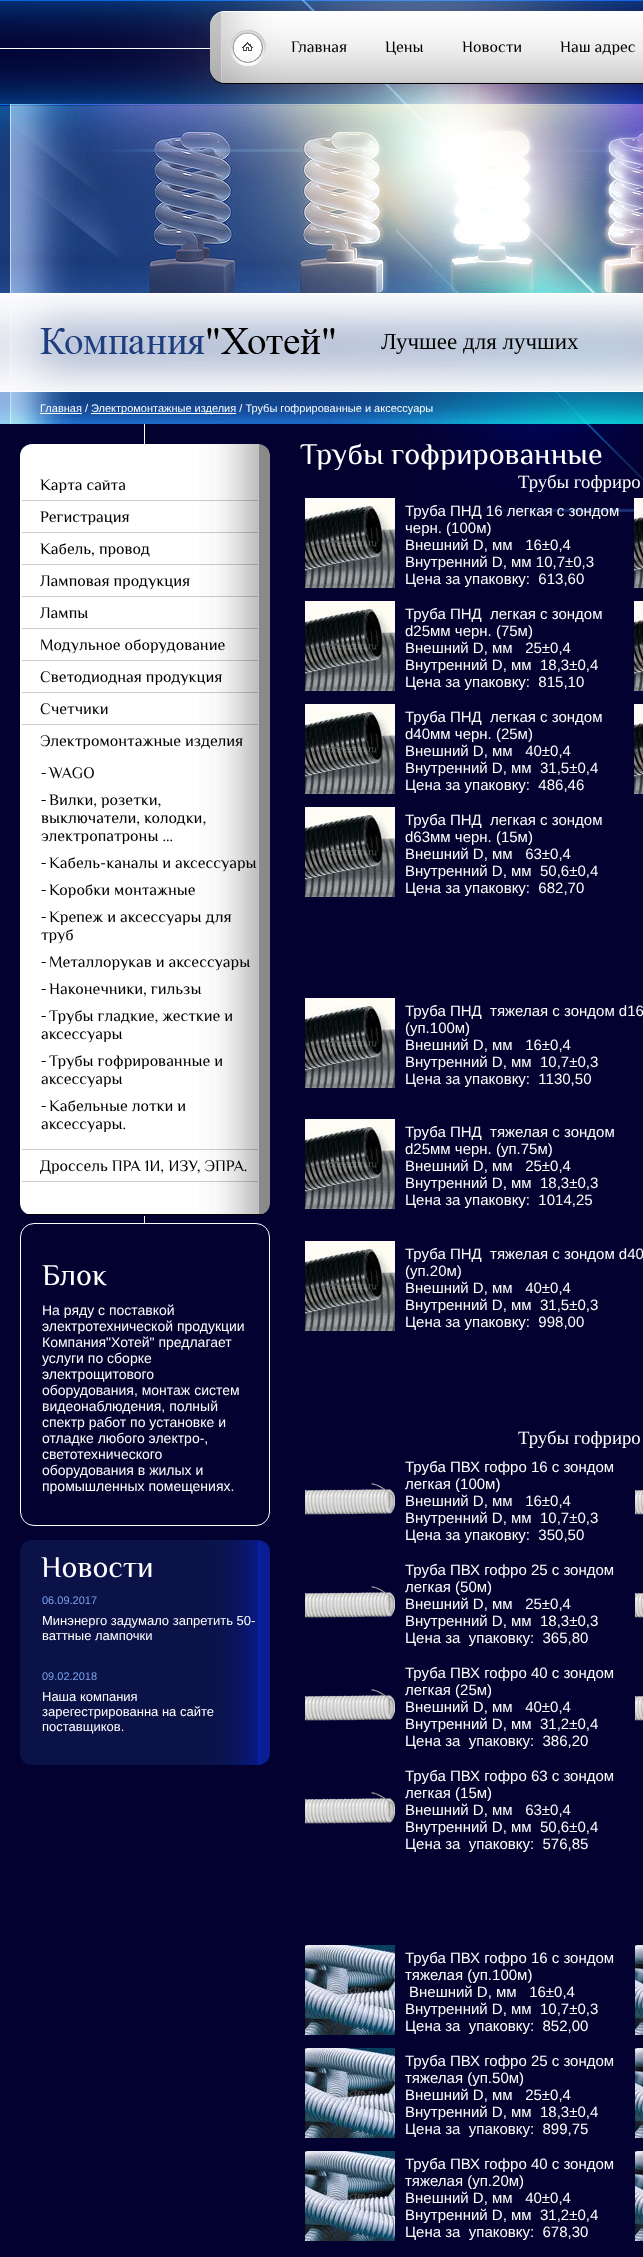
<svg xmlns="http://www.w3.org/2000/svg" width="643" height="2257" viewBox="0 0 643 2257">
  <rect width="100%" height="100%" fill="#030130"/>
  <image x="0" y="0" width="643" height="424" href="img1.png"/>
  <image x="210" y="11" width="433" height="73" href="img2.png"/>
  <image x="230" y="30" width="36" height="36" href="img3.png"/>
  <image x="341" y="11" width="298" height="73" href="img4.png"/>
  <text x="291" y="52" font-family="Philosopher" font-size="16" fill="#000000">Главная</text>
  <text x="385" y="52" font-family="Philosopher" font-size="16" fill="#000000">Цены</text>
  <text x="462" y="52" font-family="Philosopher" font-size="16" fill="#000000">Новости</text>
  <text x="560" y="52" font-family="Philosopher" font-size="16" fill="#000000">Наш адрес</text>
  <image x="0" y="104" width="643" height="320" href="img5.png"/>
  <image x="40" y="328" width="295" height="26" href="img6.png"/>
  <text x="381" y="349" font-family="Liberation Serif" font-size="23" fill="#000000">Лучшее для лучших</text>
  <text x="40" y="412" font-family="Liberation Sans" font-size="11" fill="#ffffff">Главная /</text>
  <rect x="40" y="413" width="42" height="1" fill="#ffffff"/>
  <rect x="91" y="413" width="145" height="1" fill="#ffffff"/>
  <text x="91" y="412" font-family="Liberation Sans" font-size="11" fill="#ffffff">Электромонтажные изделия / Трубы гофрированные и аксессуары</text>
  <image x="416" y="424" width="227" height="88" href="img7.png"/>
  <image x="20" y="444" width="250" height="770" href="img8.png"/>
  <rect x="26" y="1214" width="238" height="1" fill="#000000"/>
  <rect x="144" y="424" width="1" height="20" fill="#ffffff"/>
  <image x="22" y="500" width="236" height="1" href="img9.png"/>
  <text x="40" y="490" font-family="Philosopher" font-size="16" fill="#000000">Карта сайта</text>
  <image x="22" y="532" width="236" height="1" href="img9.png"/>
  <text x="40" y="522" font-family="Philosopher" font-size="16" fill="#000000">Регистрация</text>
  <image x="22" y="564" width="236" height="1" href="img9.png"/>
  <text x="40" y="554" font-family="Philosopher" font-size="16" fill="#000000">Кабель, провод</text>
  <image x="22" y="596" width="236" height="1" href="img9.png"/>
  <text x="40" y="586" font-family="Philosopher" font-size="16" fill="#000000">Ламповая продукция</text>
  <image x="22" y="628" width="236" height="1" href="img9.png"/>
  <text x="40" y="618" font-family="Philosopher" font-size="16" fill="#000000">Лампы</text>
  <image x="22" y="660" width="236" height="1" href="img9.png"/>
  <text x="40" y="650" font-family="Philosopher" font-size="16" fill="#000000">Модульное оборудование</text>
  <image x="22" y="692" width="236" height="1" href="img9.png"/>
  <text x="40" y="682" font-family="Philosopher" font-size="16" fill="#000000">Светодиодная продукция</text>
  <image x="22" y="724" width="236" height="1" href="img9.png"/>
  <text x="40" y="714" font-family="Philosopher" font-size="16" fill="#000000">Счетчики</text>
  <image x="22" y="1149" width="236" height="1" href="img9.png"/>
  <text x="40" y="746" font-family="Philosopher" font-size="16" fill="#000000">Электромонтажные изделия</text>
  <image x="41" y="773" width="5" height="1" href="img10.png"/>
  <text x="49" y="778" font-family="Philosopher" font-size="16" fill="#000000">WAGO</text>
  <image x="41" y="800" width="5" height="1" href="img10.png"/>
  <text x="49" y="805" font-family="Philosopher" font-size="16" fill="#000000">Вилки, розетки,</text>
  <text x="41" y="823" font-family="Philosopher" font-size="16" fill="#000000">выключатели, колодки,</text>
  <text x="41" y="841" font-family="Philosopher" font-size="16" fill="#000000">электропатроны ...</text>
  <image x="41" y="863" width="5" height="1" href="img10.png"/>
  <text x="49" y="868" font-family="Philosopher" font-size="16" fill="#000000">Кабель-каналы и аксессуары</text>
  <image x="41" y="890" width="5" height="1" href="img10.png"/>
  <text x="49" y="895" font-family="Philosopher" font-size="16" fill="#000000">Коробки монтажные</text>
  <image x="41" y="917" width="5" height="1" href="img10.png"/>
  <text x="49" y="922" font-family="Philosopher" font-size="16" fill="#000000">Крепеж и аксессуары для</text>
  <text x="41" y="940" font-family="Philosopher" font-size="16" fill="#000000">труб</text>
  <image x="41" y="962" width="5" height="1" href="img10.png"/>
  <text x="49" y="967" font-family="Philosopher" font-size="16" fill="#000000">Металлорукав и аксессуары</text>
  <image x="41" y="989" width="5" height="1" href="img10.png"/>
  <text x="49" y="994" font-family="Philosopher" font-size="16" fill="#000000">Наконечники, гильзы</text>
  <image x="41" y="1016" width="5" height="1" href="img10.png"/>
  <text x="49" y="1021" font-family="Philosopher" font-size="16" fill="#000000">Трубы гладкие, жесткие и</text>
  <text x="41" y="1039" font-family="Philosopher" font-size="16" fill="#000000">аксессуары</text>
  <image x="41" y="1061" width="5" height="1" href="img10.png"/>
  <text x="49" y="1066" font-family="Philosopher" font-size="16" fill="#000000">Трубы гофрированные и</text>
  <text x="41" y="1084" font-family="Philosopher" font-size="16" fill="#000000">аксессуары</text>
  <image x="41" y="1106" width="5" height="1" href="img10.png"/>
  <text x="49" y="1111" font-family="Philosopher" font-size="16" fill="#000000">Кабельные лотки и</text>
  <text x="41" y="1129" font-family="Philosopher" font-size="16" fill="#000000">аксессуары.</text>
  <image x="22" y="1181" width="236" height="1" href="img9.png"/>
  <text x="40" y="1171" font-family="Philosopher" font-size="16" fill="#000000">Дроссель ПРА 1И, ИЗУ, ЭПРА.</text>
  <rect x="20.5" y="1223.5" width="249" height="302" rx="13.5" fill="none" stroke="#ffffff"/>
  <rect x="144" y="1216" width="1" height="8" fill="#ffffff"/>
  <text x="42" y="1285" font-family="Philosopher" font-size="30" fill="#ffffff">Блок</text>
  <text x="42" y="1315" font-family="Liberation Sans" font-size="14" fill="#ffffff">На ряду с поставкой</text>
  <text x="42" y="1331" font-family="Liberation Sans" font-size="14" fill="#ffffff">электротехнической продукции</text>
  <text x="42" y="1347" font-family="Liberation Sans" font-size="14" fill="#ffffff">Компания"Хотей" предлагает</text>
  <text x="42" y="1363" font-family="Liberation Sans" font-size="14" fill="#ffffff">услуги по сборке</text>
  <text x="42" y="1379" font-family="Liberation Sans" font-size="14" fill="#ffffff">электрощитового</text>
  <text x="42" y="1395" font-family="Liberation Sans" font-size="14" fill="#ffffff">оборудования, монтаж систем</text>
  <text x="42" y="1411" font-family="Liberation Sans" font-size="14" fill="#ffffff">видеонаблюдения, полный</text>
  <text x="42" y="1427" font-family="Liberation Sans" font-size="14" fill="#ffffff">спектр работ по установке и</text>
  <text x="42" y="1443" font-family="Liberation Sans" font-size="14" fill="#ffffff">отладке любого электро-,</text>
  <text x="42" y="1459" font-family="Liberation Sans" font-size="14" fill="#ffffff">светотехнического</text>
  <text x="42" y="1475" font-family="Liberation Sans" font-size="14" fill="#ffffff">оборудования в жилых и</text>
  <text x="42" y="1491" font-family="Liberation Sans" font-size="14" fill="#ffffff">промышленных помещениях.</text>
  <image x="20" y="1540" width="250" height="225" href="img11.png"/>
  <text x="41" y="1577" font-family="Philosopher" font-size="30" fill="#ffffff">Новости</text>
  <text x="42" y="1604" font-family="Liberation Sans" font-size="11" fill="#79a1ee">06.09.2017</text>
  <text x="42" y="1625" font-family="Liberation Sans" font-size="13" fill="#ffffff">Минэнерго задумало запретить 50-</text>
  <text x="42" y="1640" font-family="Liberation Sans" font-size="13" fill="#ffffff">ваттные лампочки</text>
  <text x="42" y="1680" font-family="Liberation Sans" font-size="11" fill="#79a1ee">09.02.2018</text>
  <text x="42" y="1701" font-family="Liberation Sans" font-size="13" fill="#ffffff">Наша компания</text>
  <text x="42" y="1716" font-family="Liberation Sans" font-size="13" fill="#ffffff">зарегестрированна на сайте</text>
  <text x="42" y="1731" font-family="Liberation Sans" font-size="13" fill="#ffffff">поставщиков.</text>
  <text x="300" y="464" font-family="Philosopher" font-size="30" fill="#ffffff">Трубы гофрированные</text>
  <text x="518" y="488" font-family="Liberation Serif" font-size="18.75" fill="#ffffff">Трубы гофриро</text>
  <image x="305" y="498" width="90" height="90" href="img12.png"/>
  <text x="405" y="516" font-family="Liberation Sans" font-size="15" fill="#ffffff">Труба ПНД 16 легкая с зондом</text>
  <text x="405" y="533" font-family="Liberation Sans" font-size="15" fill="#ffffff">черн. (100м)</text>
  <text x="405" y="550" font-family="Liberation Sans" font-size="15" fill="#ffffff" xml:space="preserve">Внешний D, мм   16±0,4</text>
  <text x="405" y="567" font-family="Liberation Sans" font-size="15" fill="#ffffff">Внутренний D, мм 10,7±0,3</text>
  <text x="405" y="584" font-family="Liberation Sans" font-size="15" fill="#ffffff" xml:space="preserve">Цена за упаковку:  613,60</text>
  <image x="634" y="498" width="9" height="90" href="img13.png"/>
  <image x="305" y="601" width="90" height="90" href="img12.png"/>
  <text x="405" y="619" font-family="Liberation Sans" font-size="15" fill="#ffffff" xml:space="preserve">Труба ПНД  легкая с зондом</text>
  <text x="405" y="636" font-family="Liberation Sans" font-size="15" fill="#ffffff">d25мм черн. (75м)</text>
  <text x="405" y="653" font-family="Liberation Sans" font-size="15" fill="#ffffff" xml:space="preserve">Внешний D, мм   25±0,4</text>
  <text x="405" y="670" font-family="Liberation Sans" font-size="15" fill="#ffffff" xml:space="preserve">Внутренний D, мм  18,3±0,4</text>
  <text x="405" y="687" font-family="Liberation Sans" font-size="15" fill="#ffffff" xml:space="preserve">Цена за упаковку:  815,10</text>
  <image x="634" y="601" width="9" height="90" href="img13.png"/>
  <image x="305" y="704" width="90" height="90" href="img12.png"/>
  <text x="405" y="722" font-family="Liberation Sans" font-size="15" fill="#ffffff" xml:space="preserve">Труба ПНД  легкая с зондом</text>
  <text x="405" y="739" font-family="Liberation Sans" font-size="15" fill="#ffffff">d40мм черн. (25м)</text>
  <text x="405" y="756" font-family="Liberation Sans" font-size="15" fill="#ffffff" xml:space="preserve">Внешний D, мм   40±0,4</text>
  <text x="405" y="773" font-family="Liberation Sans" font-size="15" fill="#ffffff" xml:space="preserve">Внутренний D, мм  31,5±0,4</text>
  <text x="405" y="790" font-family="Liberation Sans" font-size="15" fill="#ffffff" xml:space="preserve">Цена за упаковку:  486,46</text>
  <image x="634" y="704" width="9" height="90" href="img13.png"/>
  <image x="305" y="807" width="90" height="90" href="img12.png"/>
  <text x="405" y="825" font-family="Liberation Sans" font-size="15" fill="#ffffff" xml:space="preserve">Труба ПНД  легкая с зондом</text>
  <text x="405" y="842" font-family="Liberation Sans" font-size="15" fill="#ffffff">d63мм черн. (15м)</text>
  <text x="405" y="859" font-family="Liberation Sans" font-size="15" fill="#ffffff" xml:space="preserve">Внешний D, мм   63±0,4</text>
  <text x="405" y="876" font-family="Liberation Sans" font-size="15" fill="#ffffff" xml:space="preserve">Внутренний D, мм  50,6±0,4</text>
  <text x="405" y="893" font-family="Liberation Sans" font-size="15" fill="#ffffff" xml:space="preserve">Цена за упаковку:  682,70</text>
  <image x="305" y="998" width="90" height="90" href="img12.png"/>
  <text x="405" y="1016" font-family="Liberation Sans" font-size="15" fill="#ffffff" xml:space="preserve">Труба ПНД  тяжелая с зондом d16</text>
  <text x="405" y="1033" font-family="Liberation Sans" font-size="15" fill="#ffffff">(уп.100м)</text>
  <text x="405" y="1050" font-family="Liberation Sans" font-size="15" fill="#ffffff" xml:space="preserve">Внешний D, мм   16±0,4</text>
  <text x="405" y="1067" font-family="Liberation Sans" font-size="15" fill="#ffffff" xml:space="preserve">Внутренний D, мм  10,7±0,3</text>
  <text x="405" y="1084" font-family="Liberation Sans" font-size="15" fill="#ffffff" xml:space="preserve">Цена за упаковку:  1130,50</text>
  <image x="305" y="1119" width="90" height="90" href="img12.png"/>
  <text x="405" y="1137" font-family="Liberation Sans" font-size="15" fill="#ffffff" xml:space="preserve">Труба ПНД  тяжелая с зондом</text>
  <text x="405" y="1154" font-family="Liberation Sans" font-size="15" fill="#ffffff">d25мм черн. (уп.75м)</text>
  <text x="405" y="1171" font-family="Liberation Sans" font-size="15" fill="#ffffff" xml:space="preserve">Внешний D, мм   25±0,4</text>
  <text x="405" y="1188" font-family="Liberation Sans" font-size="15" fill="#ffffff" xml:space="preserve">Внутренний D, мм  18,3±0,3</text>
  <text x="405" y="1205" font-family="Liberation Sans" font-size="15" fill="#ffffff" xml:space="preserve">Цена за упаковку:  1014,25</text>
  <image x="305" y="1241" width="90" height="90" href="img12.png"/>
  <text x="405" y="1259" font-family="Liberation Sans" font-size="15" fill="#ffffff" xml:space="preserve">Труба ПНД  тяжелая с зондом d40</text>
  <text x="405" y="1276" font-family="Liberation Sans" font-size="15" fill="#ffffff">(уп.20м)</text>
  <text x="405" y="1293" font-family="Liberation Sans" font-size="15" fill="#ffffff" xml:space="preserve">Внешний D, мм   40±0,4</text>
  <text x="405" y="1310" font-family="Liberation Sans" font-size="15" fill="#ffffff" xml:space="preserve">Внутренний D, мм  31,5±0,3</text>
  <text x="405" y="1327" font-family="Liberation Sans" font-size="15" fill="#ffffff" xml:space="preserve">Цена за упаковку:  998,00</text>
  <text x="518" y="1444" font-family="Liberation Serif" font-size="18.75" fill="#ffffff">Трубы гофриро</text>
  <image x="305" y="1483" width="90" height="32" href="img14.png"/>
  <text x="405" y="1472" font-family="Liberation Sans" font-size="15" fill="#ffffff">Труба ПВХ гофро 16 с зондом</text>
  <text x="405" y="1489" font-family="Liberation Sans" font-size="15" fill="#ffffff">легкая (100м)</text>
  <text x="405" y="1506" font-family="Liberation Sans" font-size="15" fill="#ffffff" xml:space="preserve">Внешний D, мм   16±0,4</text>
  <text x="405" y="1523" font-family="Liberation Sans" font-size="15" fill="#ffffff" xml:space="preserve">Внутренний D, мм  10,7±0,3</text>
  <text x="405" y="1540" font-family="Liberation Sans" font-size="15" fill="#ffffff" xml:space="preserve">Цена за упаковку:  350,50</text>
  <image x="635" y="1490" width="8" height="25" href="img15.png"/>
  <image x="305" y="1586" width="90" height="32" href="img14.png"/>
  <text x="405" y="1575" font-family="Liberation Sans" font-size="15" fill="#ffffff">Труба ПВХ гофро 25 с зондом</text>
  <text x="405" y="1592" font-family="Liberation Sans" font-size="15" fill="#ffffff">легкая (50м)</text>
  <text x="405" y="1609" font-family="Liberation Sans" font-size="15" fill="#ffffff" xml:space="preserve">Внешний D, мм   25±0,4</text>
  <text x="405" y="1626" font-family="Liberation Sans" font-size="15" fill="#ffffff" xml:space="preserve">Внутренний D, мм  18,3±0,3</text>
  <text x="405" y="1643" font-family="Liberation Sans" font-size="15" fill="#ffffff" xml:space="preserve">Цена за  упаковку:  365,80</text>
  <image x="635" y="1593" width="8" height="25" href="img15.png"/>
  <image x="305" y="1689" width="90" height="32" href="img14.png"/>
  <text x="405" y="1678" font-family="Liberation Sans" font-size="15" fill="#ffffff">Труба ПВХ гофро 40 с зондом</text>
  <text x="405" y="1695" font-family="Liberation Sans" font-size="15" fill="#ffffff">легкая (25м)</text>
  <text x="405" y="1712" font-family="Liberation Sans" font-size="15" fill="#ffffff" xml:space="preserve">Внешний D, мм   40±0,4</text>
  <text x="405" y="1729" font-family="Liberation Sans" font-size="15" fill="#ffffff" xml:space="preserve">Внутренний D, мм  31,2±0,4</text>
  <text x="405" y="1746" font-family="Liberation Sans" font-size="15" fill="#ffffff" xml:space="preserve">Цена за  упаковку:  386,20</text>
  <image x="635" y="1696" width="8" height="25" href="img15.png"/>
  <image x="305" y="1792" width="90" height="32" href="img14.png"/>
  <text x="405" y="1781" font-family="Liberation Sans" font-size="15" fill="#ffffff">Труба ПВХ гофро 63 с зондом</text>
  <text x="405" y="1798" font-family="Liberation Sans" font-size="15" fill="#ffffff">легкая (15м)</text>
  <text x="405" y="1815" font-family="Liberation Sans" font-size="15" fill="#ffffff" xml:space="preserve">Внешний D, мм   63±0,4</text>
  <text x="405" y="1832" font-family="Liberation Sans" font-size="15" fill="#ffffff" xml:space="preserve">Внутренний D, мм  50,6±0,4</text>
  <text x="405" y="1849" font-family="Liberation Sans" font-size="15" fill="#ffffff" xml:space="preserve">Цена за  упаковку:  576,85</text>
  <image x="305" y="1945" width="90" height="90" href="img16.png"/>
  <text x="405" y="1963" font-family="Liberation Sans" font-size="15" fill="#ffffff">Труба ПВХ гофро 16 с зондом</text>
  <text x="405" y="1980" font-family="Liberation Sans" font-size="15" fill="#ffffff">тяжелая (уп.100м)</text>
  <text x="409" y="1997" font-family="Liberation Sans" font-size="15" fill="#ffffff" xml:space="preserve">Внешний D, мм   16±0,4</text>
  <text x="405" y="2014" font-family="Liberation Sans" font-size="15" fill="#ffffff" xml:space="preserve">Внутренний D, мм  10,7±0,3</text>
  <text x="405" y="2031" font-family="Liberation Sans" font-size="15" fill="#ffffff" xml:space="preserve">Цена за  упаковку:  852,00</text>
  <image x="635" y="1945" width="8" height="90" href="img17.png"/>
  <image x="305" y="2048" width="90" height="90" href="img16.png"/>
  <text x="405" y="2066" font-family="Liberation Sans" font-size="15" fill="#ffffff">Труба ПВХ гофро 25 с зондом</text>
  <text x="405" y="2083" font-family="Liberation Sans" font-size="15" fill="#ffffff">тяжелая (уп.50м)</text>
  <text x="405" y="2100" font-family="Liberation Sans" font-size="15" fill="#ffffff" xml:space="preserve">Внешний D, мм   25±0,4</text>
  <text x="405" y="2117" font-family="Liberation Sans" font-size="15" fill="#ffffff" xml:space="preserve">Внутренний D, мм  18,3±0,4</text>
  <text x="405" y="2134" font-family="Liberation Sans" font-size="15" fill="#ffffff" xml:space="preserve">Цена за  упаковку:  899,75</text>
  <image x="635" y="2048" width="8" height="90" href="img17.png"/>
  <image x="305" y="2151" width="90" height="90" href="img16.png"/>
  <text x="405" y="2169" font-family="Liberation Sans" font-size="15" fill="#ffffff">Труба ПВХ гофро 40 с зондом</text>
  <text x="405" y="2186" font-family="Liberation Sans" font-size="15" fill="#ffffff">тяжелая (уп.20м)</text>
  <text x="405" y="2203" font-family="Liberation Sans" font-size="15" fill="#ffffff" xml:space="preserve">Внешний D, мм   40±0,4</text>
  <text x="405" y="2220" font-family="Liberation Sans" font-size="15" fill="#ffffff" xml:space="preserve">Внутренний D, мм  31,2±0,4</text>
  <text x="405" y="2237" font-family="Liberation Sans" font-size="15" fill="#ffffff" xml:space="preserve">Цена за  упаковку:  678,30</text>
  <image x="635" y="2151" width="8" height="90" href="img17.png"/>
</svg>
